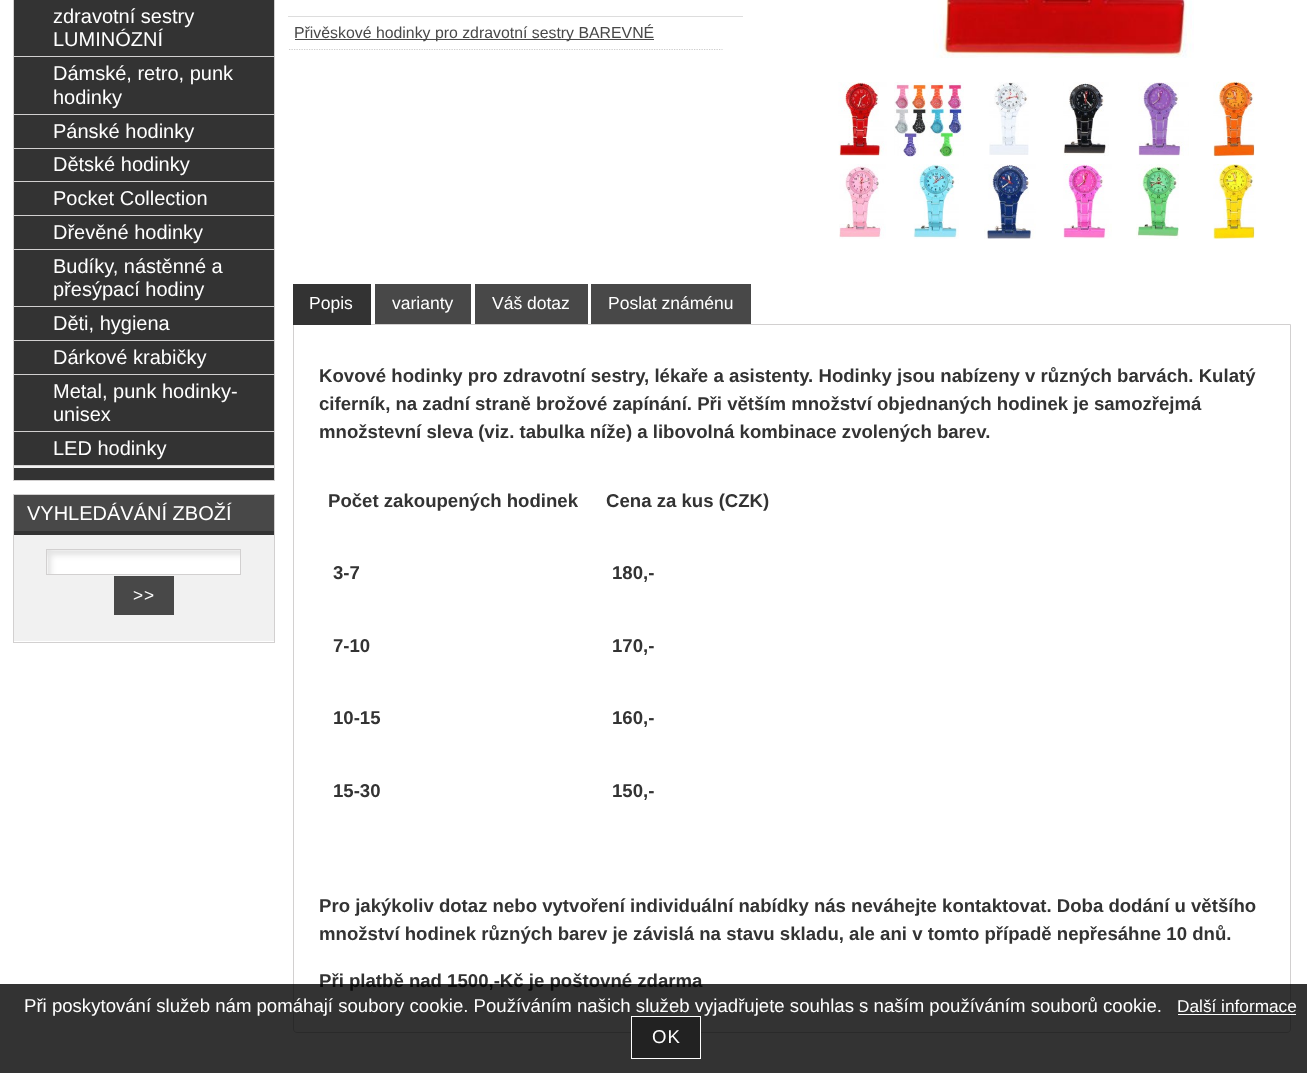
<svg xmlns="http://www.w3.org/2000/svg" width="1307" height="1073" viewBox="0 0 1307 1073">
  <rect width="100%" height="100%" fill="#ffffff"/>
  <rect x="13.5" y="-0.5" width="261" height="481" fill="none" stroke="#d2d0d0"/>
  <rect x="14" y="466" width="260" height="2" fill="#f1f1f1"/>
  <rect x="14" y="0" width="260" height="114" fill="#333333"/>
  <rect x="14" y="56" width="260" height="1" fill="#d2d0d0"/>
  <text x="53" y="23" font-family="Liberation Sans" font-size="20" fill="#ffffff">zdravotní sestry</text>
  <text x="53" y="46" font-family="Liberation Sans" font-size="20" fill="#ffffff">LUMINÓZNÍ</text>
  <rect x="14" y="114" width="260" height="1" fill="#d2d0d0"/>
  <text x="53" y="80" font-family="Liberation Sans" font-size="20" fill="#ffffff">Dámské, retro, punk</text>
  <text x="53" y="104" font-family="Liberation Sans" font-size="20" fill="#ffffff">hodinky</text>
  <rect x="14" y="115" width="260" height="33" fill="#333333"/>
  <rect x="14" y="148" width="260" height="1" fill="#d2d0d0"/>
  <text x="53" y="138" font-family="Liberation Sans" font-size="20" fill="#ffffff">Pánské hodinky</text>
  <rect x="14" y="149" width="260" height="66" fill="#333333"/>
  <rect x="14" y="181" width="260" height="1" fill="#d2d0d0"/>
  <text x="53" y="171" font-family="Liberation Sans" font-size="20" fill="#ffffff">Dětské hodinky</text>
  <rect x="14" y="215" width="260" height="1" fill="#d2d0d0"/>
  <text x="53" y="205" font-family="Liberation Sans" font-size="20" fill="#ffffff">Pocket Collection</text>
  <rect x="14" y="216" width="260" height="33" fill="#333333"/>
  <rect x="14" y="249" width="260" height="1" fill="#d2d0d0"/>
  <text x="53" y="239" font-family="Liberation Sans" font-size="20" fill="#ffffff">Dřevěné hodinky</text>
  <rect x="14" y="250" width="260" height="90" fill="#333333"/>
  <rect x="14" y="306" width="260" height="1" fill="#d2d0d0"/>
  <text x="53" y="273" font-family="Liberation Sans" font-size="20" fill="#ffffff">Budíky, nástěnné a</text>
  <text x="53" y="296" font-family="Liberation Sans" font-size="20" fill="#ffffff">přesýpací hodiny</text>
  <rect x="14" y="340" width="260" height="1" fill="#d2d0d0"/>
  <text x="53" y="330" font-family="Liberation Sans" font-size="20" fill="#ffffff">Děti, hygiena</text>
  <rect x="14" y="341" width="260" height="33" fill="#333333"/>
  <rect x="14" y="374" width="260" height="1" fill="#d2d0d0"/>
  <text x="53" y="364" font-family="Liberation Sans" font-size="20" fill="#ffffff">Dárkové krabičky</text>
  <rect x="14" y="375" width="260" height="90" fill="#333333"/>
  <rect x="14" y="431" width="260" height="1" fill="#d2d0d0"/>
  <text x="53" y="398" font-family="Liberation Sans" font-size="20" fill="#ffffff">Metal, punk hodinky-</text>
  <text x="53" y="421" font-family="Liberation Sans" font-size="20" fill="#ffffff">unisex</text>
  <rect x="14" y="465" width="260" height="1" fill="#d2d0d0"/>
  <text x="53" y="455" font-family="Liberation Sans" font-size="20" fill="#ffffff">LED hodinky</text>
  <rect x="14" y="468" width="260" height="12" fill="#333333"/>
  <rect x="13.5" y="494.5" width="261" height="148" fill="none" stroke="#d2d0d0"/>
  <rect x="14" y="495" width="260" height="36" fill="#484848"/>
  <rect x="14" y="531" width="260" height="4" fill="#333333"/>
  <text x="27" y="520" font-family="Liberation Sans" font-size="20" fill="#ffffff">VYHLEDÁVÁNÍ ZBOŽÍ</text>
  <rect x="14" y="535" width="260" height="106" fill="#f1f1f1"/>
  <image x="47" y="550" width="193" height="24" href="img1.png"/>
  <rect x="46.5" y="549.5" width="194" height="25" fill="none" stroke="#d2d0d0"/>
  <rect x="114" y="576" width="60" height="39" fill="#484848"/>
  <text x="133" y="601" font-family="Liberation Sans" font-size="17.25" letter-spacing="1" fill="#ffffff">&gt;&gt;</text>
  <rect x="288" y="16" width="455" height="1" fill="#dddddd"/>
  <image x="933" y="0" width="261" height="58" href="img2.png"/>
  <image x="838" y="82" width="49" height="74" href="img3.png"/>
  <image x="894" y="82" width="70" height="75" href="img4.png"/>
  <image x="989" y="82" width="40" height="73" href="img5.png"/>
  <image x="1063" y="82" width="46" height="74" href="img6.png"/>
  <image x="1138" y="82" width="51" height="74" href="img7.png"/>
  <image x="1213" y="81" width="42" height="76" href="img8.png"/>
  <image x="839" y="164" width="47" height="75" href="img9.png"/>
  <image x="913" y="164" width="46" height="75" href="img10.png"/>
  <image x="984" y="164" width="52" height="75" href="img11.png"/>
  <image x="1063" y="164" width="49" height="75" href="img12.png"/>
  <image x="1136" y="164" width="43" height="75" href="img13.png"/>
  <image x="1213" y="164" width="43" height="75" href="img14.png"/>
  <path d="M289 49.5H722.5" fill="none" stroke="#cccccc" stroke-width="1.2" stroke-dasharray="1.25 1.25"/>
  <rect x="295" y="39" width="359" height="1" fill="#484848"/>
  <text x="294" y="38" font-family="Liberation Sans" font-size="15.85" fill="#484848">Přivěskové hodinky pro zdravotní sestry BAREVNÉ</text>
  <path d="M293.5 324.5H1290.5V1029C1290.5 1031 1289 1032.5 1287 1032.5H297C295 1032.5 293.5 1031 293.5 1029Z" fill="none" stroke="#d2d0d0"/>
  <rect x="293" y="284" width="78" height="41" fill="#333333"/>
  <text x="309" y="309" font-family="Liberation Sans" font-size="17.5" fill="#ffffff">Popis</text>
  <rect x="375" y="284" width="96" height="40" fill="#484848"/>
  <text x="392" y="309" font-family="Liberation Sans" font-size="17.5" fill="#ffffff">varianty</text>
  <rect x="475" y="284" width="113" height="40" fill="#484848"/>
  <text x="492" y="309" font-family="Liberation Sans" font-size="17.5" fill="#ffffff">Váš dotaz</text>
  <rect x="591" y="284" width="160" height="40" fill="#484848"/>
  <text x="608" y="309" font-family="Liberation Sans" font-size="17.5" fill="#ffffff">Poslat známénu</text>
  <text x="319" y="382" font-family="Liberation Sans" font-size="18.6" font-weight="bold" fill="#333333">Kovové hodinky pro zdravotní sestry, lékaře a asistenty. Hodinky jsou nabízeny v různých barvách. Kulatý</text>
  <text x="319" y="410" font-family="Liberation Sans" font-size="18.6" font-weight="bold" fill="#333333">ciferník, na zadní straně brožové zapínání. Při větším množství objednaných hodinek je samozřejmá</text>
  <text x="319" y="438" font-family="Liberation Sans" font-size="18.6" font-weight="bold" fill="#333333">množstevní sleva (viz. tabulka níže) a libovolná kombinace zvolených barev.</text>
  <text x="328" y="507" font-family="Liberation Sans" font-size="18.6" font-weight="bold" fill="#333333">Počet zakoupených hodinek</text>
  <text x="606" y="507" font-family="Liberation Sans" font-size="18.6" font-weight="bold" fill="#333333">Cena za kus (CZK)</text>
  <text x="333" y="579" font-family="Liberation Sans" font-size="18.6" font-weight="bold" fill="#333333">3-7</text>
  <text x="612" y="579" font-family="Liberation Sans" font-size="18.6" font-weight="bold" fill="#333333">180,-</text>
  <text x="333" y="652" font-family="Liberation Sans" font-size="18.6" font-weight="bold" fill="#333333">7-10</text>
  <text x="612" y="652" font-family="Liberation Sans" font-size="18.6" font-weight="bold" fill="#333333">170,-</text>
  <text x="333" y="724" font-family="Liberation Sans" font-size="18.6" font-weight="bold" fill="#333333">10-15</text>
  <text x="612" y="724" font-family="Liberation Sans" font-size="18.6" font-weight="bold" fill="#333333">160,-</text>
  <text x="333" y="797" font-family="Liberation Sans" font-size="18.6" font-weight="bold" fill="#333333">15-30</text>
  <text x="612" y="797" font-family="Liberation Sans" font-size="18.6" font-weight="bold" fill="#333333">150,-</text>
  <text x="319" y="912" font-family="Liberation Sans" font-size="18.6" font-weight="bold" fill="#333333">Pro jakýkoliv dotaz nebo vytvoření individuální nabídky nás neváhejte kontaktovat. Doba dodání u většího</text>
  <text x="319" y="940" font-family="Liberation Sans" font-size="18.6" font-weight="bold" fill="#333333">množství hodinek různých barev je závislá na stavu skladu, ale ani v tomto případě nepřesáhne 10 dnů.</text>
  <text x="319" y="987" font-family="Liberation Sans" font-size="18.6" font-weight="bold" fill="#333333">Při platbě nad 1500,-Kč je poštovné zdarma</text>
  <rect x="0" y="984" width="1307" height="89" fill="#000000" fill-opacity="0.8"/>
  <text x="24" y="1012" font-family="Liberation Sans" font-size="18.6" fill="#ffffff">Při poskytování služeb nám pomáhají soubory cookie. Používáním našich služeb vyjadřujete souhlas s naším používáním souborů cookie.</text>
  <text x="1177" y="1012" font-family="Liberation Sans" font-size="17.25" fill="#ffffff">Další informace</text>
  <rect x="1178" y="1014" width="118" height="1" fill="#ffffff"/>
  <rect x="631.5" y="1016.5" width="69" height="42" fill="#222222" stroke="#ffffff"/>
  <text x="652" y="1043" font-family="Liberation Sans" font-size="18.6" letter-spacing="1" fill="#ffffff">OK</text>
</svg>
